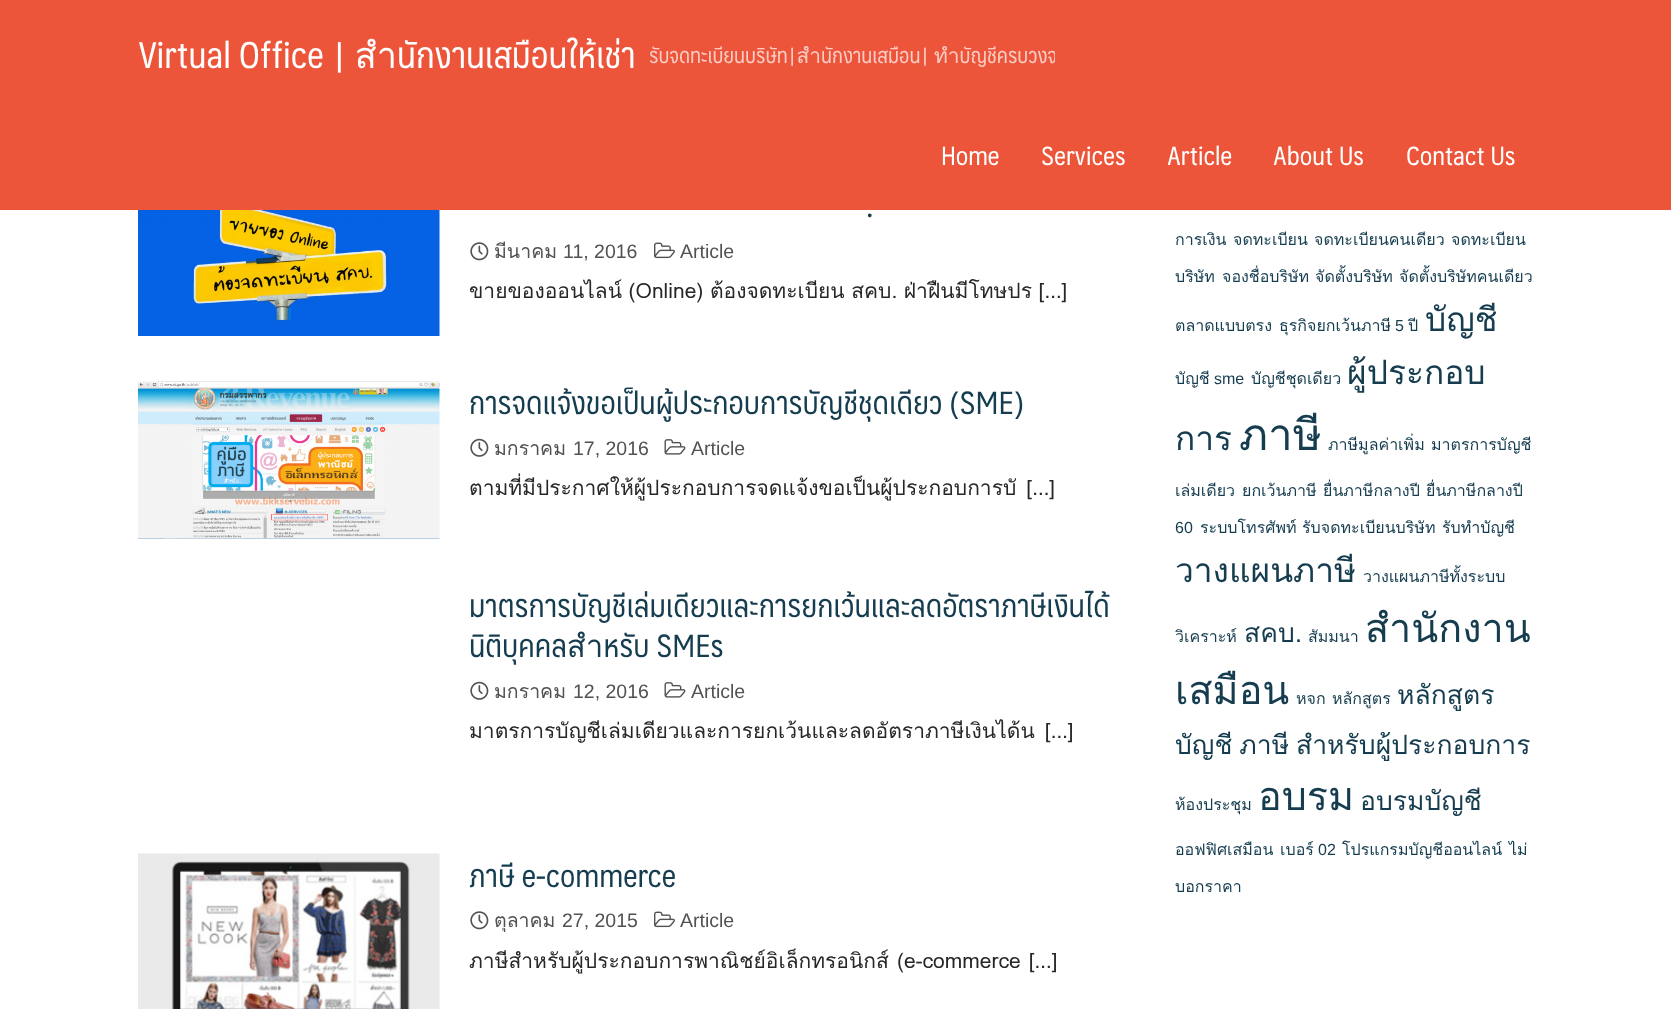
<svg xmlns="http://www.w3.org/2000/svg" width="1671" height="1009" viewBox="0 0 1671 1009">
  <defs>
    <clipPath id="clip1"><rect x="650" y="0" width="405" height="105"/></clipPath>
  </defs>
  <rect width="100%" height="100%" fill="#ffffff"/>
  <rect x="0" y="0" width="1671" height="210" fill="#ed553b"/>
  <text x="138" y="68" font-family="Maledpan" font-size="36" fill="#ffffff">Virtual Office | สำนักงานเสมือนให้เช่า</text>
  <g clip-path="url(#clip1)">
    <text x="649" y="63" font-family="Maledpan" font-size="21" fill="#faccc4">รับจดทะเบียนบริษัท|สำนักงานเสมือน| ทำบัญชีครบวงจร</text>
  </g>
  <text x="941" y="165" font-family="Maledpan" font-size="25.5" fill="#ffffff">Home</text>
  <text x="1041" y="165" font-family="Maledpan" font-size="25.5" fill="#ffffff">Services</text>
  <text x="1167" y="165" font-family="Maledpan" font-size="25.5" fill="#ffffff">Article</text>
  <text x="1273" y="165" font-family="Maledpan" font-size="25.5" fill="#ffffff">About Us</text>
  <text x="1406" y="165" font-family="Maledpan" font-size="25.5" fill="#ffffff">Contact Us</text>
  <image x="138" y="210" width="302" height="126" href="img1.png"/>
  <text x="866" y="217" font-family="Maledpan" font-size="31.2" fill="#163d4f">.</text>
  <image x="470" y="242" width="19" height="19" href="img2.png"/>
  <text x="494" y="258" font-family="Loma" font-size="19.5" fill="#515353">มีนาคม</text>
  <text x="563" y="258" font-family="Liberation Sans" font-size="19.5" fill="#515353">11, 2016</text>
  <image x="654" y="242" width="21" height="17" href="img3.png"/>
  <text x="680" y="258" font-family="Liberation Sans" font-size="19.5" fill="#515353">Article</text>
  <text x="469" y="298" word-spacing="-0.5" font-family="Loma" font-size="21" fill="#262828">ขายของออนไลน์ (Online) ต้องจดทะเบียน สคบ. ฝ่าฝืนมีโทษปร […]</text>
  <image x="138" y="381" width="302" height="158" href="img4.png"/>
  <text x="469" y="414" font-family="Maledpan" font-size="31.2" fill="#163d4f">การจดแจ้งขอเป็นผู้ประกอบการบัญชีชุดเดียว (SME)</text>
  <image x="470" y="438" width="19" height="19" href="img5.png"/>
  <text x="494" y="455" font-family="Loma" font-size="19.5" fill="#515353">มกราคม</text>
  <text x="573" y="455" font-family="Liberation Sans" font-size="19.5" fill="#515353">17, 2016</text>
  <image x="664" y="439" width="22" height="16" href="img6.png"/>
  <text x="691" y="455" font-family="Liberation Sans" font-size="19.5" fill="#515353">Article</text>
  <text x="469" y="495" word-spacing="3" font-family="Loma" font-size="21" fill="#262828">ตามที่มีประกาศให้ผู้ประกอบการจดแจ้งขอเป็นผู้ประกอบการบั […]</text>
  <text x="469" y="617" font-family="Maledpan" font-size="31.2" fill="#163d4f">มาตรการบัญชีเล่มเดียวและการยกเว้นและลดอัตราภาษีเงินได้</text>
  <text x="469" y="657" font-family="Maledpan" font-size="31.2" fill="#163d4f">นิติบุคคลสำหรับ SMEs</text>
  <image x="470" y="681" width="19" height="19" href="img5.png"/>
  <text x="494" y="698" font-family="Loma" font-size="19.5" fill="#515353">มกราคม</text>
  <text x="573" y="698" font-family="Liberation Sans" font-size="19.5" fill="#515353">12, 2016</text>
  <image x="664" y="682" width="22" height="16" href="img6.png"/>
  <text x="691" y="698" font-family="Liberation Sans" font-size="19.5" fill="#515353">Article</text>
  <text x="469" y="738" word-spacing="3" font-family="Loma" font-size="21" fill="#262828">มาตรการบัญชีเล่มเดียวและการยกเว้นและลดอัตราภาษีเงินได้น […]</text>
  <image x="138" y="853" width="302" height="156" href="img7.png"/>
  <text x="469" y="887" font-family="Maledpan" font-size="31.2" fill="#163d4f">ภาษี e-commerce</text>
  <image x="470" y="911" width="19" height="19" href="img2.png"/>
  <text x="494" y="927" font-family="Loma" font-size="19.5" fill="#515353">ตุลาคม</text>
  <text x="562" y="927" font-family="Liberation Sans" font-size="19.5" fill="#515353">27, 2015</text>
  <image x="654" y="911" width="21" height="17" href="img3.png"/>
  <text x="680" y="927" font-family="Liberation Sans" font-size="19.5" fill="#515353">Article</text>
  <text x="469" y="968" word-spacing="1" font-family="Loma" font-size="21" fill="#262828">ภาษีสำหรับผู้ประกอบการพาณิชย์อิเล็กทรอนิกส์ (e-commerce […]</text>
  <text x="1175" y="245" font-family="Loma" font-size="16" fill="#163d4f">การเงิน</text>
  <text x="1233" y="245" font-family="Loma" font-size="16" fill="#163d4f">จดทะเบียน</text>
  <text x="1314" y="245" font-family="Loma" font-size="16" fill="#163d4f">จดทะเบียนคนเดียว</text>
  <text x="1451" y="245" font-family="Loma" font-size="16" fill="#163d4f">จดทะเบียน</text>
  <text x="1175" y="282" font-family="Loma" font-size="16" fill="#163d4f">บริษัท</text>
  <text x="1222" y="282" font-family="Loma" font-size="16" fill="#163d4f">จองชื่อบริษัท</text>
  <text x="1315" y="282" font-family="Loma" font-size="16" fill="#163d4f">จัดตั้งบริษัท</text>
  <text x="1399" y="282" font-family="Loma" font-size="16" fill="#163d4f">จัดตั้งบริษัทคนเดียว</text>
  <text x="1175" y="331" font-family="Loma" font-size="16" fill="#163d4f">ตลาดแบบตรง</text>
  <text x="1279" y="331" font-family="Loma" font-size="16" fill="#163d4f">ธุรกิจยกเว้นภาษี</text>
  <text x="1395" y="331" font-family="Liberation Sans" font-size="16" fill="#163d4f">5</text>
  <text x="1408" y="331" font-family="Loma" font-size="16" fill="#163d4f">ปี</text>
  <text x="1425" y="331" font-family="Loma" font-size="33.5" fill="#163d4f">บัญชี</text>
  <text x="1175" y="384" font-family="Loma" font-size="16" fill="#163d4f">บัญชี</text>
  <text x="1214" y="384" font-family="Liberation Sans" font-size="16" fill="#163d4f">sme</text>
  <text x="1251" y="384" font-family="Loma" font-size="16" fill="#163d4f">บัญชีชุดเดียว</text>
  <text x="1347" y="384" font-family="Loma" font-size="33.5" fill="#163d4f">ผู้ประกอบ</text>
  <text x="1175" y="450" font-family="Loma" font-size="33.5" fill="#163d4f">การ</text>
  <text x="1239" y="450" font-family="Loma" font-size="44" fill="#163d4f">ภาษี</text>
  <text x="1328" y="450" font-family="Loma" font-size="16" fill="#163d4f">ภาษีมูลค่าเพิ่ม</text>
  <text x="1431" y="450" font-family="Loma" font-size="16" fill="#163d4f">มาตรการบัญชี</text>
  <text x="1175" y="496" font-family="Loma" font-size="16" fill="#163d4f">เล่มเดียว</text>
  <text x="1242" y="496" font-family="Loma" font-size="16" fill="#163d4f">ยกเว้นภาษี</text>
  <text x="1323" y="496" font-family="Loma" font-size="16" fill="#163d4f">ยื่นภาษีกลางปี</text>
  <text x="1426" y="496" font-family="Loma" font-size="16" fill="#163d4f">ยื่นภาษีกลางปี</text>
  <text x="1175" y="533" font-family="Liberation Sans" font-size="16" fill="#163d4f">60</text>
  <text x="1200" y="533" font-family="Loma" font-size="16" fill="#163d4f">ระบบโทรศัพท์</text>
  <text x="1302" y="533" font-family="Loma" font-size="16" fill="#163d4f">รับจดทะเบียนบริษัท</text>
  <text x="1442" y="533" font-family="Loma" font-size="16" fill="#163d4f">รับทำบัญชี</text>
  <text x="1175" y="582" font-family="Loma" font-size="33.5" fill="#163d4f">วางแผนภาษี</text>
  <text x="1363" y="582" font-family="Loma" font-size="16" fill="#163d4f">วางแผนภาษีทั้งระบบ</text>
  <text x="1175" y="642" font-family="Loma" font-size="16" fill="#163d4f">วิเคราะห์</text>
  <text x="1244" y="642" font-family="Loma" font-size="26.5" fill="#163d4f">สคบ.</text>
  <text x="1308" y="642" font-family="Loma" font-size="16" fill="#163d4f">สัมมนา</text>
  <text x="1365" y="642" font-family="Loma" font-size="39.5" fill="#163d4f">สำนักงาน</text>
  <text x="1175" y="704" font-family="Loma" font-size="39.5" fill="#163d4f">เสมือน</text>
  <text x="1296" y="704" font-family="Loma" font-size="16" fill="#163d4f">หจก</text>
  <text x="1332" y="704" font-family="Loma" font-size="16" fill="#163d4f">หลักสูตร</text>
  <text x="1397" y="704" font-family="Loma" font-size="26.5" fill="#163d4f">หลักสูตร</text>
  <text x="1175" y="754" word-spacing="-2" font-family="Loma" font-size="26.5" fill="#163d4f">บัญชี ภาษี สำหรับผู้ประกอบการ</text>
  <text x="1175" y="810" font-family="Loma" font-size="16" fill="#163d4f">ห้องประชุม</text>
  <text x="1258" y="810" font-family="Loma" font-size="39.5" fill="#163d4f">อบรม</text>
  <text x="1360" y="810" font-family="Loma" font-size="26.5" fill="#163d4f">อบรมบัญชี</text>
  <text x="1175" y="855" font-family="Loma" font-size="16" fill="#163d4f">ออฟฟิศเสมือน</text>
  <text x="1280" y="855" font-family="Loma" font-size="16" fill="#163d4f">เบอร์</text>
  <text x="1318" y="855" font-family="Liberation Sans" font-size="16" fill="#163d4f">02</text>
  <text x="1342" y="855" font-family="Loma" font-size="16" fill="#163d4f">โปรแกรมบัญชีออนไลน์</text>
  <text x="1509" y="855" font-family="Loma" font-size="16" fill="#163d4f">ไม่</text>
  <text x="1175" y="892" font-family="Loma" font-size="16" fill="#163d4f">บอกราคา</text>
</svg>
